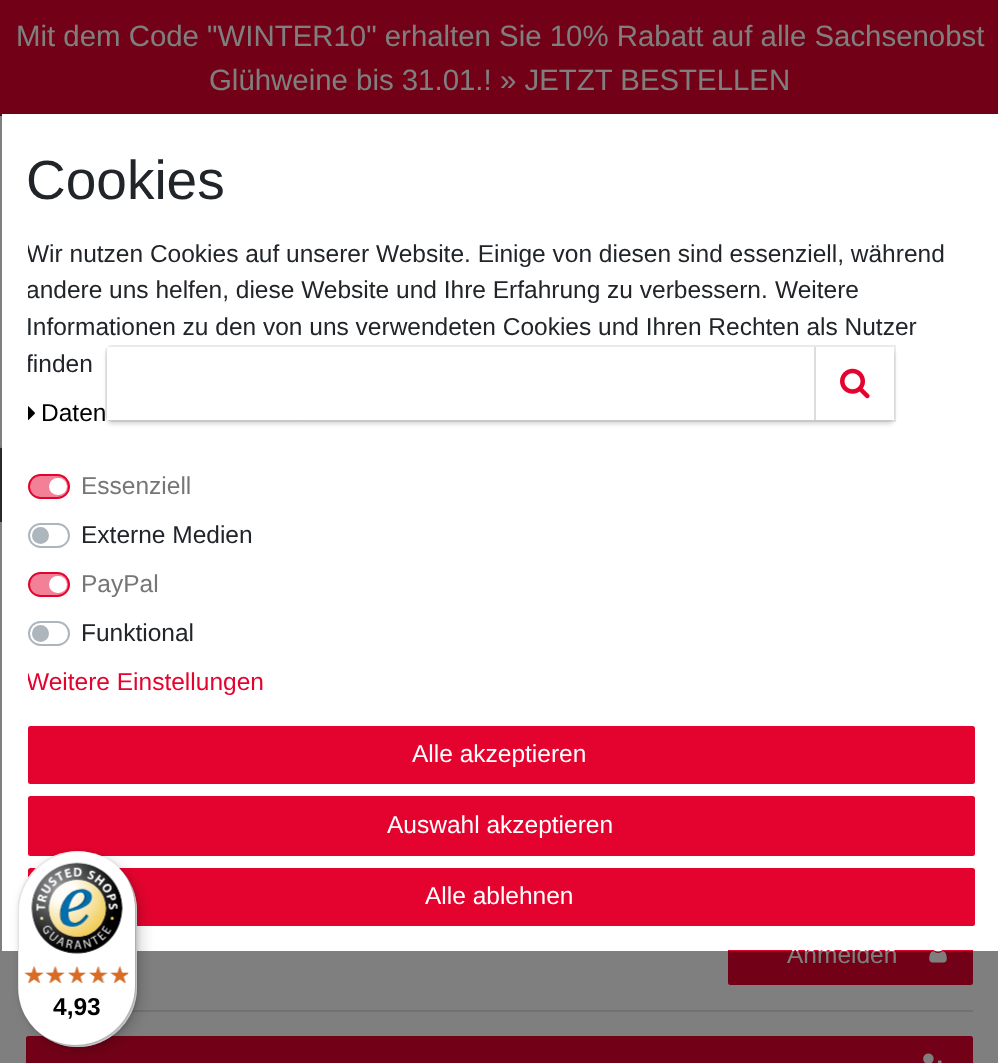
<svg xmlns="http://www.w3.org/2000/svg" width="998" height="1063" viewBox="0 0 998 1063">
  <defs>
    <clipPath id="clip1"><path d="M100 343H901V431H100ZM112 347H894V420H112C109 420 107 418 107 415V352C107 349 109 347 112 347Z" clip-rule="evenodd"/></clipPath>
    <filter id="blur1" x="-50%" y="-200%" width="200%" height="500%"><feGaussianBlur stdDeviation="2"/></filter>
    <clipPath id="clip2"><rect x="28" y="114" width="947" height="836"/></clipPath>
    <filter id="blur2" x="-50%" y="-200%" width="200%" height="500%"><feGaussianBlur stdDeviation="7"/></filter>
  </defs>
  <rect width="100%" height="100%" fill="#ffffff"/>
  <rect x="0" y="0" width="998" height="116" fill="#e4032e"/>
  <text x="16" y="46" font-family="Liberation Sans" font-size="29.4" fill="#ffffff">Mit dem Code "WINTER10" erhalten Sie 10% Rabatt auf alle Sachsenobst</text>
  <text x="209" y="90" font-family="Liberation Sans" font-size="29.4" fill="#ffffff">Glühweine bis 31.01.!</text>
  <text x="500" y="90" font-family="Liberation Sans" font-size="29.4" fill="#ffffff">» JETZT BESTELLEN</text>
  <rect x="0" y="446" width="2" height="2" fill="#efefef"/>
  <rect x="0" y="448" width="2" height="74" fill="#525252"/>
  <rect x="729" y="927" width="243" height="57" rx="1.5" fill="#e4032e" stroke="#e4032e" stroke-width="2"/>
  <text x="787" y="963" font-family="Liberation Sans" font-size="24.5" fill="#ffffff">Anmelden</text>
  <image x="929" y="950" width="18" height="13" href="img2.png"/>
  <rect x="131" y="1010" width="842" height="2" fill="#dee2e6"/>
  <rect x="27" y="1037" width="945" height="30" rx="1.5" fill="#e4032e" stroke="#e4032e" stroke-width="2"/>
  <image x="923" y="1053" width="19" height="10" href="img3.png"/>
  <rect x="-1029.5" y="-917.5" width="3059" height="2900" fill="none" stroke="#000000" stroke-opacity="0.5" stroke-width="2063"/>
  <rect x="2" y="114" width="996" height="836" fill="#ffffff"/>
  <image x="299" y="420" width="1" height="1" href="img5.png"/>
  <path d="M112 346H895V421H112C108.5 421 106 418.5 106 415V352C106 348.5 108.5 346 112 346Z" fill="none" stroke="#000000" stroke-opacity="0.08" stroke-width="2"/>
  <g clip-path="url(#clip1)">
    <rect x="107" y="350" width="787" height="74" rx="5" fill="#000000" fill-opacity="0.16" filter="url(#blur1)"/>
  </g>
  <rect x="107" y="347" width="5" height="73" fill="#ffffff"/>
  <rect x="814" y="347" width="2" height="73" fill="#dddddd"/>
  <image x="840" y="368" width="30" height="31" href="img1.png"/>
  <text x="26" y="199" font-family="Liberation Sans" font-size="55" fill="#212529">Cookies</text>
  <g clip-path="url(#clip2)">
    <text x="26" y="262" font-family="Liberation Sans" font-size="24.5" fill="#212529">Wir nutzen Cookies auf unserer Website. Einige von diesen sind essenziell, während</text>
    <text x="26" y="298" font-family="Liberation Sans" font-size="24.5" fill="#212529">andere uns helfen, diese Website und Ihre Erfahrung zu verbessern.</text>
  </g>
  <text x="775" y="298" font-family="Liberation Sans" font-size="24.5" fill="#212529">Weitere</text>
  <text x="26" y="335" font-family="Liberation Sans" font-size="24.5" fill="#212529">Informationen zu den von uns verwendeten Cookies und Ihren Rechten als Nutzer</text>
  <g clip-path="url(#clip2)">
    <text x="26" y="372" font-family="Liberation Sans" font-size="24.5" fill="#212529">finden</text>
  </g>
  <image x="28" y="406" width="7" height="14" href="img4.png"/>
  <text x="41" y="421" font-family="Liberation Sans" font-size="24.5" fill="#000000">Daten</text>
  <rect x="29" y="475" width="40" height="23" rx="11.5" fill="#f28197" stroke="#e4032e" stroke-width="2"/>
  <text x="81" y="494" font-family="Liberation Sans" font-size="24.5" fill="#767676">Essenziell</text>
  <rect x="49" y="478" width="18" height="17" rx="8.5" fill="#ffffff"/>
  <rect x="29" y="524" width="40" height="23" rx="11.5" fill="none" stroke="#adb5bd" stroke-width="2"/>
  <text x="81" y="543" font-family="Liberation Sans" font-size="24.5" fill="#212529">Externe Medien</text>
  <circle cx="40.5" cy="535.5" r="8.5" fill="#adb5bd"/>
  <rect x="29" y="573" width="40" height="23" rx="11.5" fill="#f28197" stroke="#e4032e" stroke-width="2"/>
  <text x="81" y="592" font-family="Liberation Sans" font-size="24.5" fill="#767676">PayPal</text>
  <rect x="49" y="576" width="18" height="17" rx="8.5" fill="#ffffff"/>
  <rect x="29" y="622" width="40" height="23" rx="11.5" fill="none" stroke="#adb5bd" stroke-width="2"/>
  <text x="81" y="641" font-family="Liberation Sans" font-size="24.5" fill="#212529">Funktional</text>
  <circle cx="40.5" cy="633.5" r="8.5" fill="#adb5bd"/>
  <g clip-path="url(#clip2)">
    <text x="26" y="690" font-family="Liberation Sans" font-size="24.5" fill="#e4032e">Weitere Einstellungen</text>
  </g>
  <rect x="29" y="727" width="945" height="56" rx="1.5" fill="#e4032e" stroke="#e4032e" stroke-width="2"/>
  <text x="412" y="762" font-family="Liberation Sans" font-size="24.5" fill="#ffffff">Alle akzeptieren</text>
  <rect x="29" y="797" width="945" height="58" rx="1.5" fill="#e4032e" stroke="#e4032e" stroke-width="2"/>
  <text x="387" y="833" font-family="Liberation Sans" font-size="24.5" fill="#ffffff">Auswahl akzeptieren</text>
  <rect x="29" y="869" width="945" height="56" rx="1.5" fill="#e4032e" stroke="#e4032e" stroke-width="2"/>
  <text x="425" y="904" font-family="Liberation Sans" font-size="24.5" fill="#ffffff">Alle ablehnen</text>
  <rect x="23" y="856" width="119" height="196" rx="59.5" fill="#000000" fill-opacity="0.15" filter="url(#blur2)"/>
  <rect x="19" y="852" width="119" height="196" rx="59.5" fill="#000000" fill-opacity="0.15" filter="url(#blur1)"/>
  <rect x="18" y="851" width="119" height="196" rx="59.5" fill="#ffffff"/>
  <path d="M79 852C94 852 107 857 117 866C106 857 93 851 78 851C45 851 18 878 18 910V988C18 1003 24 1016 33 1027C24 1017 19 1004 19 989V912C19 879 46 852 79 852Z" fill="#000000" fill-opacity="0.1"/>
  <path d="M36 1030C47 1041 61 1047 78 1047C110 1047 137 1020 137 988V910C137 894 131 880 120 869C129 879 135 893 135 908V985C135 1018 108 1045 75 1045C60 1045 46 1039 36 1030Z" fill="#000000" fill-opacity="0.2"/>
  <path d="M35 1029C46 1040 61 1047 78 1047C110 1047 137 1020 137 988V910C137 894 130 879 119 868C129 879 135 893 135 909V986C135 1019 109 1045 76 1045C60 1045 46 1039 35 1029Z" fill="#323232" fill-opacity="0.2"/>
  <path d="M38 1032C49 1041 62 1047 78 1047C110 1047 137 1020 137 988V910C137 895 131 882 122 871C131 881 136 894 136 909V986C136 1019 109 1046 76 1046C61 1046 48 1041 38 1032Z" fill="#ffffff" fill-opacity="0.3"/>
  <image x="31" y="862" width="92" height="92" href="img6.png"/>
  <image x="24" y="966" width="20" height="17" href="img7.png"/>
  <image x="47" y="966" width="18" height="17" href="img8.png"/>
  <image x="68" y="966" width="18" height="17" href="img9.png"/>
  <image x="89" y="966" width="20" height="17" href="img10.png"/>
  <image x="110" y="966" width="20" height="17" href="img11.png"/>
  <image x="24" y="966" width="20" height="17" href="img12.png"/>
  <image x="45" y="966" width="20" height="17" href="img13.png"/>
  <image x="68" y="966" width="18" height="17" href="img14.png"/>
  <image x="89" y="966" width="18" height="17" href="img15.png"/>
  <image x="110" y="966" width="18" height="17" href="img16.png"/>
  <text x="53" y="1015" font-family="Liberation Sans" font-size="24.5" font-weight="bold" fill="#000000">4,93</text>
</svg>
